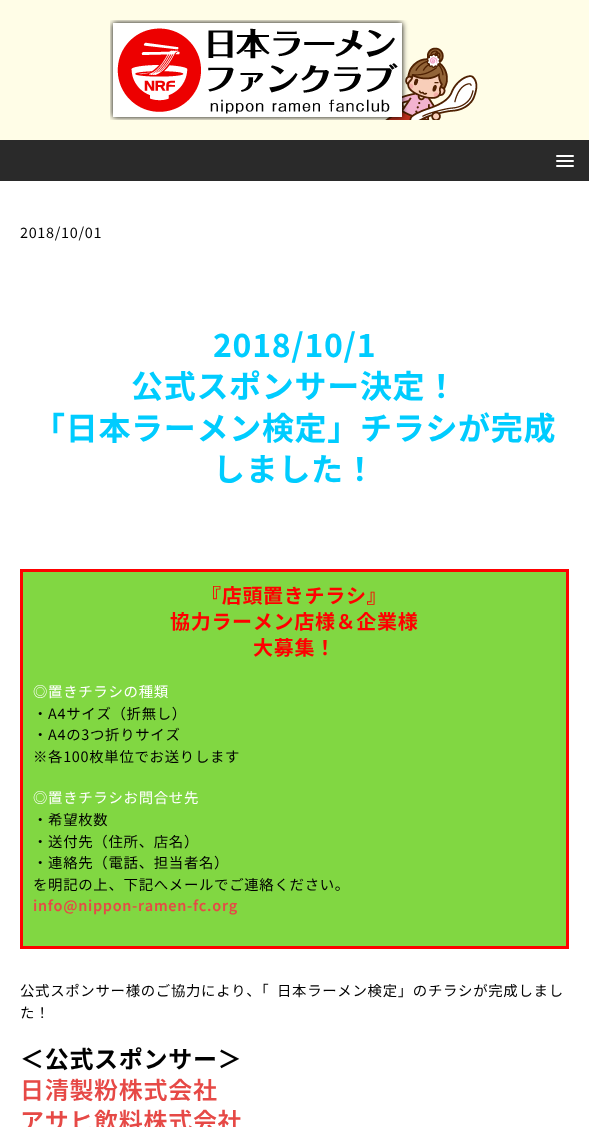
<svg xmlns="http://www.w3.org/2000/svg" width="589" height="1127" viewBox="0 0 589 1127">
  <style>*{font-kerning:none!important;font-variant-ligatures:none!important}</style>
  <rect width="100%" height="100%" fill="#fffde7"/>
  <image x="110" y="20" width="368" height="100" href="img1.png"/>
  <rect x="0" y="140" width="589" height="41" fill="#2a2a2a"/>
  <rect x="556" y="155" width="18" height="2" rx="1" fill="#ffffff"/>
  <rect x="556" y="160" width="18" height="2" rx="1" fill="#ffffff"/>
  <rect x="556" y="165" width="18" height="2" rx="1" fill="#ffffff"/>
  <rect x="0" y="181" width="589" height="946" fill="#ffffff"/>
  <text x="20" y="238" font-family="Noto Sans JP" font-size="14.4" letter-spacing="0.7" fill="#000000">2018/10/01</text>
  <text x="213" y="357" font-family="Noto Sans JP" font-size="32" font-weight="bold" letter-spacing="0.7" fill="#00ccff">2018/10/1</text>
  <text x="131" y="398" font-family="Noto Sans JP" font-size="32" font-weight="bold" letter-spacing="0.7" fill="#00ccff">公式スポンサー決定！</text>
  <text x="33" y="440" font-family="Noto Sans JP" font-size="32" font-weight="bold" letter-spacing="0.7" fill="#00ccff">「日本ラーメン検定」チラシが完成</text>
  <text x="213" y="481" font-family="Noto Sans JP" font-size="32" font-weight="bold" letter-spacing="0.7" fill="#00ccff">しました！</text>
  <rect x="21.5" y="570.5" width="546" height="377" fill="#81d742" stroke="#ff0000" stroke-width="3"/>
  <text x="201" y="603" font-family="Noto Sans JP" font-size="20" font-weight="bold" letter-spacing="0.7" fill="#ff0000">『店頭置きチラシ』</text>
  <text x="170" y="629" font-family="Noto Sans JP" font-size="20" font-weight="bold" letter-spacing="0.7" fill="#ff0000">協力ラーメン店様＆企業様</text>
  <text x="253" y="655" font-family="Noto Sans JP" font-size="20" font-weight="bold" letter-spacing="0.7" fill="#ff0000">大募集！</text>
  <text x="33" y="697" font-family="Noto Sans JP" font-size="14.4" letter-spacing="0.7" fill="#ffffff">◎置きチラシの種類</text>
  <text x="33" y="719" font-family="Noto Sans JP" font-size="14.4" letter-spacing="0.7" fill="#000000">・A4サイズ（折無し）</text>
  <text x="33" y="740" font-family="Noto Sans JP" font-size="14.4" letter-spacing="0.7" fill="#000000">・A4の3つ折りサイズ</text>
  <text x="33" y="762" font-family="Noto Sans JP" font-size="14.4" letter-spacing="0.7" fill="#000000">※各100枚単位でお送りします</text>
  <text x="33" y="803" font-family="Noto Sans JP" font-size="14.4" letter-spacing="0.7" fill="#ffffff">◎置きチラシお問合せ先</text>
  <text x="33" y="825" font-family="Noto Sans JP" font-size="14.4" letter-spacing="0.7" fill="#000000">・希望枚数</text>
  <text x="33" y="847" font-family="Noto Sans JP" font-size="14.4" letter-spacing="0.7" fill="#000000">・送付先（住所、店名）</text>
  <text x="33" y="868" font-family="Noto Sans JP" font-size="14.4" letter-spacing="0.7" fill="#000000">・連絡先（電話、担当者名）</text>
  <text x="33" y="890" font-family="Noto Sans JP" font-size="14.4" letter-spacing="0.7" fill="#000000">を明記の上、下記へメールでご連絡ください。</text>
  <text x="33" y="911" font-family="Noto Sans JP" font-size="14.4" font-weight="600" letter-spacing="0.7" fill="#e64946">info@nippon-ramen-fc.org</text>
  <text x="20" y="996" font-family="Noto Sans JP" font-size="14.4" letter-spacing="0.7" fill="#000000">公式スポンサー様のご協力により、「</text>
  <text x="277" y="996" font-family="Noto Sans JP" font-size="14.4" letter-spacing="0.7" fill="#000000">日本ラーメン検定」のチラシが完成しまし</text>
  <text x="20" y="1018" font-family="Noto Sans JP" font-size="14.4" letter-spacing="0.7" fill="#000000">た！</text>
  <text x="20" y="1068" font-family="Noto Sans JP" font-size="24" font-weight="bold" letter-spacing="0.7" fill="#000000">＜公式スポンサー＞</text>
  <text x="20" y="1099" font-family="Noto Sans JP" font-size="24" font-weight="600" letter-spacing="0.7" fill="#e64946">日清製粉株式会社</text>
  <text x="20" y="1130" font-family="Noto Sans JP" font-size="24" font-weight="600" letter-spacing="0.7" fill="#e64946">アサヒ飲料株式会社</text>
</svg>
